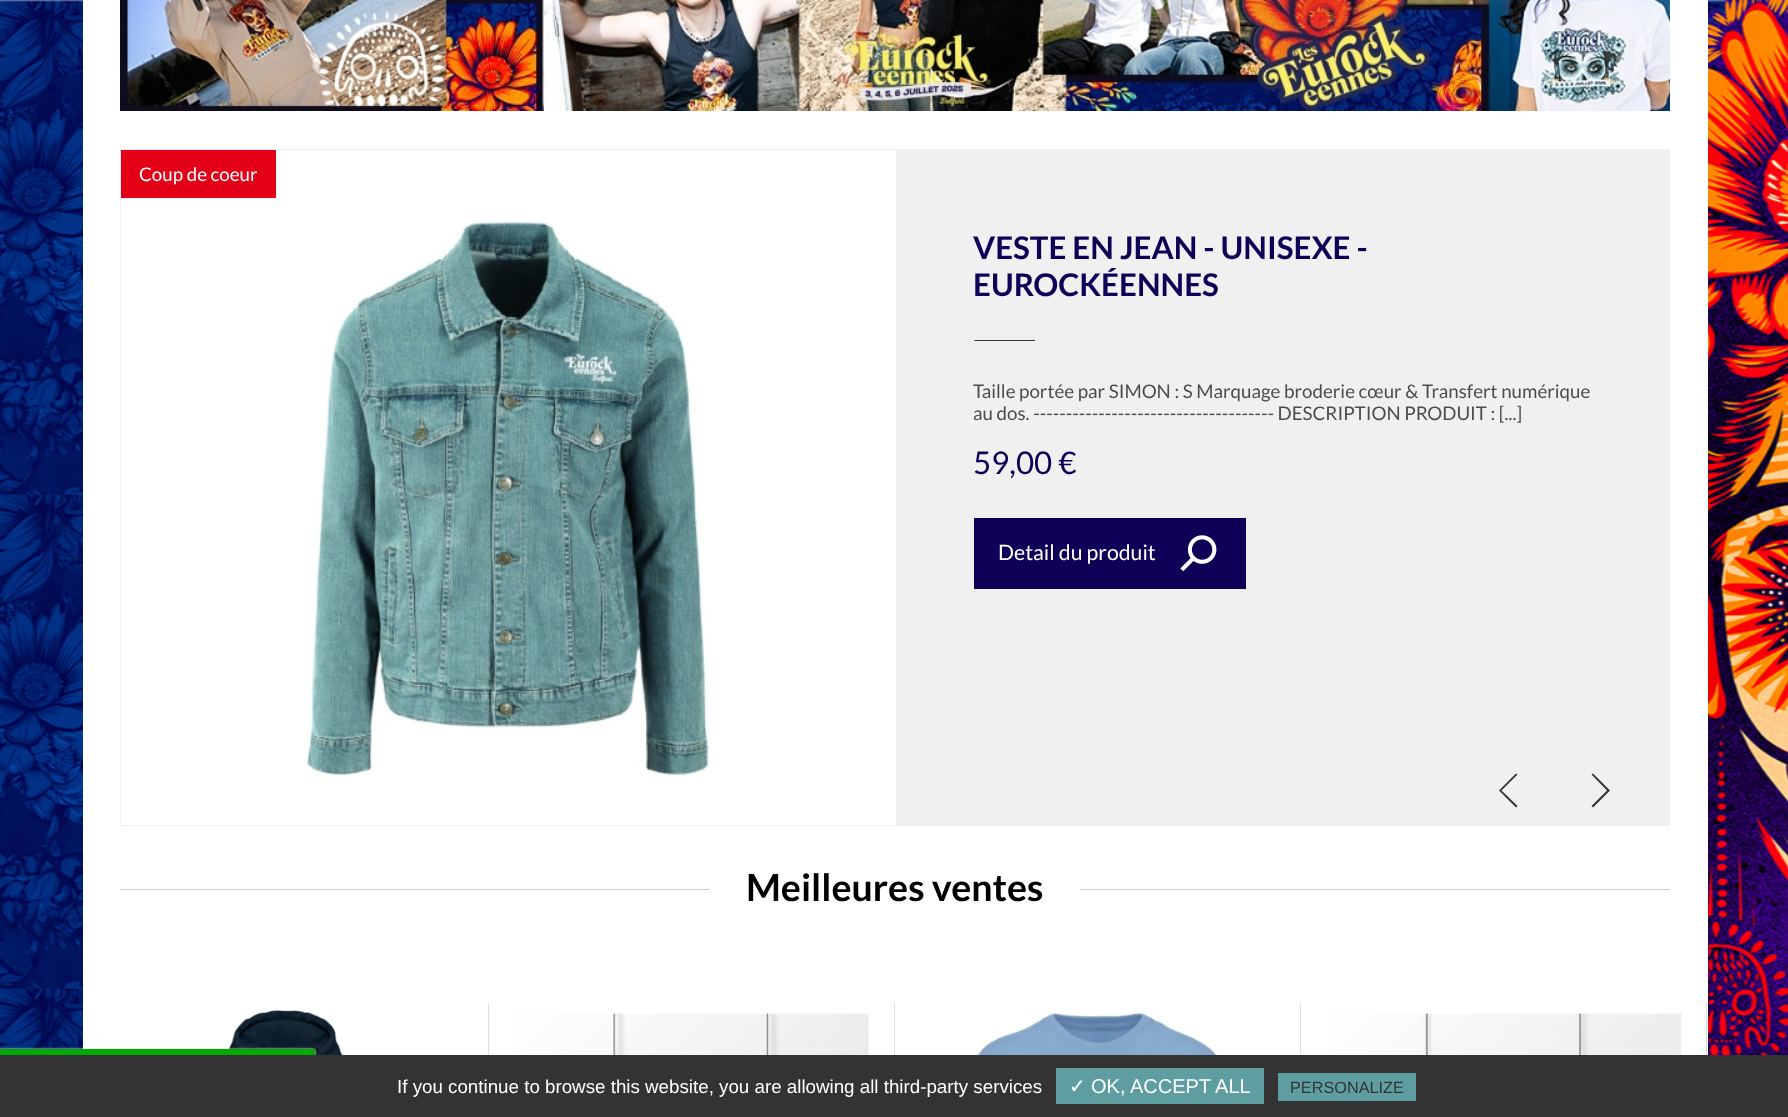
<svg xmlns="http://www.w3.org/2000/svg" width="1788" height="1117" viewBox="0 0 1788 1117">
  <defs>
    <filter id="blur1" x="-50%" y="-200%" width="200%" height="500%"><feGaussianBlur stdDeviation="1"/></filter>
  </defs>
  <rect width="100%" height="100%" fill="#ffffff"/>
  <image x="0" y="0" width="1788" height="1055" href="img1.png"/>
  <rect x="83" y="0" width="1625" height="1055" fill="#ffffff"/>
  <image x="120" y="0" width="1550" height="111" href="img2.png"/>
  <rect x="120.5" y="149.5" width="1549" height="676" fill="none" stroke="#f0f0f0"/>
  <rect x="121" y="150" width="155" height="48" fill="#e30017"/>
  <text x="139" y="181" font-family="Lato" font-size="18.75" fill="#ffffff">Coup de coeur</text>
  <image x="306" y="220" width="404" height="558" href="img3.png"/>
  <rect x="896" y="150" width="773" height="675" fill="#f0f0f0"/>
  <text x="973" y="259" font-family="Lato" font-size="31.25" font-weight="bold" fill="#0e0056">VESTE EN JEAN - UNISEXE -</text>
  <text x="973" y="296" font-family="Lato" font-size="31.25" font-weight="bold" fill="#0e0056">EUROCKÉENNES</text>
  <rect x="974" y="340" width="62" height="1" fill="#333333"/>
  <rect x="1035" y="340" width="1" height="1" fill="#eeeeee"/>
  <rect x="974" y="340" width="1" height="1" fill="#9f9f9f"/>
  <text x="973" y="398" font-family="Lato" font-size="18.75" fill="#494d4e">Taille portée par SIMON : S Marquage broderie cœur &amp; Transfert numérique</text>
  <text x="973" y="420" font-family="Lato" font-size="18.75" fill="#494d4e">au dos. ------------------------------------- DESCRIPTION PRODUIT : [...]</text>
  <text x="973" y="474" font-family="Lato" font-size="31.25" fill="#0e0056">59,00 €</text>
  <rect x="974" y="518" width="272" height="71" fill="#0e0056"/>
  <text x="998" y="560" font-family="Lato" font-size="21.25" fill="#ffffff">Detail du produit</text>
  <image x="1180" y="535" width="37" height="37" href="img4.png"/>
  <path d="M1516 807.5L1499 790.5L1516 773.5L1517.5 774.5L1501.5 790.5L1517.5 806Z" fill="#333333"/>
  <path d="M1593 773.5L1610 790.5L1593 807.5L1591.5 806L1607 790.5L1591.5 774.5Z" fill="#333333"/>
  <rect x="120" y="889" width="589" height="1" fill="#cccccc"/>
  <text x="746" y="901" font-family="Lato" font-size="37.5" font-weight="bold" fill="#000000">Meilleures ventes</text>
  <rect x="1080" y="889" width="590" height="1" fill="#cccccc"/>
  <rect x="488" y="1003" width="1" height="52" fill="#dedede"/>
  <image x="170" y="1010" width="229" height="45" href="img5.png"/>
  <rect x="894" y="1003" width="1" height="52" fill="#dedede"/>
  <image x="514" y="1013" width="355" height="42" href="img6.png"/>
  <rect x="1300" y="1003" width="1" height="52" fill="#dedede"/>
  <image x="958" y="1012" width="280" height="43" href="img7.png"/>
  <rect x="1706" y="1003" width="1" height="52" fill="#dedede"/>
  <image x="1327" y="1013" width="355" height="42" href="img8.png"/>
  <rect x="0" y="1050" width="315" height="6" fill="#555555" filter="url(#blur1)"/>
  <rect x="0" y="1049" width="315" height="6" fill="#ffffff" filter="url(#blur1)"/>
  <rect x="0" y="1049" width="315" height="6" fill="#00aa00"/>
  <rect x="0" y="1055" width="1788" height="62" fill="#333333"/>
  <text x="397" y="1093" font-family="Liberation Sans" font-size="18.75" fill="#ffffff">If you continue to browse this website, you are allowing all third-party services</text>
  <rect x="1056" y="1068" width="208" height="36" fill="#5f9ea0"/>
  <text x="1069" y="1093" font-family="DejaVu Sans" font-size="20" fill="#ffffff">✓</text>
  <text x="1091" y="1093" font-family="Liberation Sans" font-size="20" fill="#ffffff">OK, ACCEPT ALL</text>
  <rect x="1278" y="1073" width="138" height="28" fill="#5f9ea0"/>
  <text x="1290" y="1093" font-family="Liberation Sans" font-size="16.25" fill="#333333">PERSONALIZE</text>
</svg>
